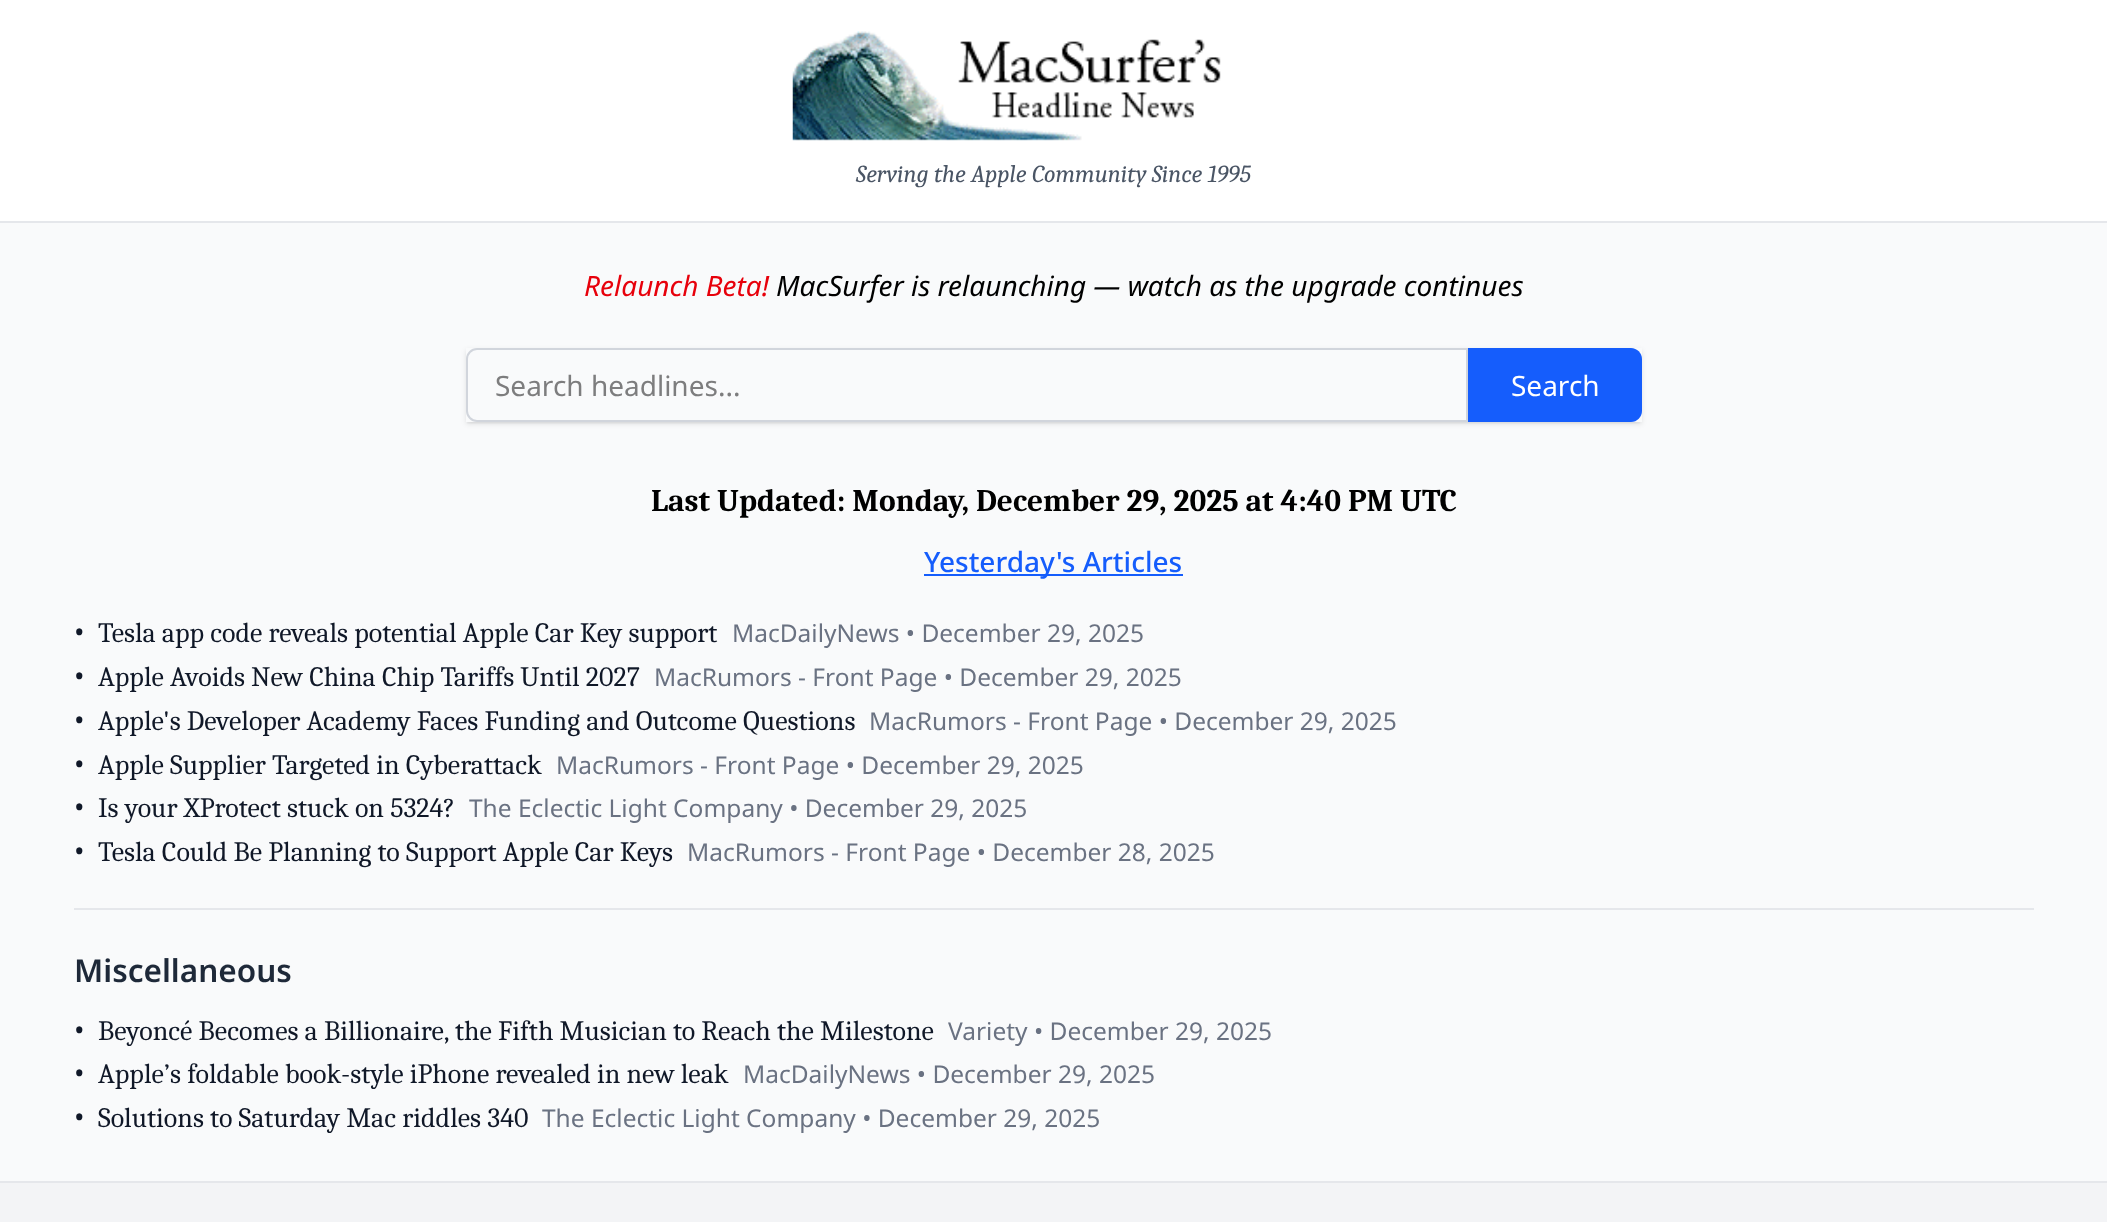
<svg xmlns="http://www.w3.org/2000/svg" width="2107" height="1222">
<defs>
<clipPath id="clip1"><rect x="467" y="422" width="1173" height="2"/></clipPath>
<clipPath id="clip2"><path d="M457 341h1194v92h-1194zm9 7h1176v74h-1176z" clip-rule="evenodd"/></clipPath>
</defs>
<rect width="100%" height="100%" fill="#f9fafb"/>
<rect width="2107" height="221" fill="#fff"/>
<rect y="221" width="2107" height="2" fill="#e5e7eb"/>
<image x="792" y="31" width="429" height="110" href="media/1.png"/>
<text x="856" y="182" style="font-family:Caladea;font-size:24.5px;font-style:italic;fill:#4a5565">Serving the Apple Community Since 1995</text>
<text x="584" y="296" style="font-family:Noto Sans;font-size:28px;font-style:italic;fill:#e7000b">Relaunch Beta!</text>
<text x="776" y="296" style="font-family:Noto Sans;font-size:28px;font-style:italic;fill:#000">MacSurfer is relaunching — watch as the upgrade continues</text>
<g clip-path="url(#clip1)">
<rect x="467" y="352" width="1173" height="70" fill="#0000001a" filter="blur(2px)"/>
</g>
<g clip-path="url(#clip2)">
<rect x="466" y="350" width="1176" height="74" fill="#0000001a" filter="blur(2.5px)"/>
</g>
<path d="M477 349h990v72h-990c-5.5 0-10-4.5-10-10v-52c0-5.5 4.5-10 10-10z" fill="none" stroke="#d1d5dc" stroke-width="2"/>
<text x="495" y="396" style="font-family:Noto Sans;font-size:28px;fill:#7d7d7e">Search headlines...</text>
<path d="M1468 348h163c6 0 11 5 11 11v52c0 6-5 11-11 11h-163z" fill="#155dfc"/>
<text x="1511" y="396" style="font-family:Noto Sans;font-size:28px;fill:#fff">Search</text>
<text x="651" y="511" style="font-family:Caladea;font-size:31.5px;font-weight:bold;fill:#000">Last Updated: Monday, December 29, 2025 at 4:40 PM UTC</text>
<rect x="924" y="574" width="259" height="2" fill="#155dfc"/>
<text x="924" y="572" style="font-family:Noto Sans;font-size:28px;font-weight:500;fill:#155dfc">Yesterday's Articles</text>
<text x="74" y="642" style="font-family:Noto Sans;font-size:28px;fill:#101828">•</text>
<text x="98" y="642" style="font-family:Caladea;font-size:28px;fill:#101828">Tesla app code reveals potential Apple Car Key support</text>
<text x="732" y="642" style="font-family:Noto Sans;font-size:24.5px;fill:#6a7282">MacDailyNews • December 29, 2025</text>
<text x="74" y="686" style="font-family:Noto Sans;font-size:28px;fill:#101828">•</text>
<text x="98" y="686" style="font-family:Caladea;font-size:28px;fill:#101828">Apple Avoids New China Chip Tariffs Until 2027</text>
<text x="654" y="686" style="font-family:Noto Sans;font-size:24.5px;fill:#6a7282">MacRumors - Front Page • December 29, 2025</text>
<text x="74" y="730" style="font-family:Noto Sans;font-size:28px;fill:#101828">•</text>
<text x="98" y="730" style="font-family:Caladea;font-size:28px;fill:#101828">Apple's Developer Academy Faces Funding and Outcome Questions</text>
<text x="869" y="730" style="font-family:Noto Sans;font-size:24.5px;fill:#6a7282">MacRumors - Front Page • December 29, 2025</text>
<text x="74" y="774" style="font-family:Noto Sans;font-size:28px;fill:#101828">•</text>
<text x="98" y="774" style="font-family:Caladea;font-size:28px;fill:#101828">Apple Supplier Targeted in Cyberattack</text>
<text x="556" y="774" style="font-family:Noto Sans;font-size:24.5px;fill:#6a7282">MacRumors - Front Page • December 29, 2025</text>
<text x="74" y="817" style="font-family:Noto Sans;font-size:28px;fill:#101828">•</text>
<text x="98" y="817" style="font-family:Caladea;font-size:28px;fill:#101828">Is your XProtect stuck on 5324?</text>
<text x="469" y="817" style="font-family:Noto Sans;font-size:24.5px;fill:#6a7282">The Eclectic Light Company • December 29, 2025</text>
<text x="74" y="861" style="font-family:Noto Sans;font-size:28px;fill:#101828">•</text>
<text x="98" y="861" style="font-family:Caladea;font-size:28px;fill:#101828">Tesla Could Be Planning to Support Apple Car Keys</text>
<text x="687" y="861" style="font-family:Noto Sans;font-size:24.5px;fill:#6a7282">MacRumors - Front Page • December 28, 2025</text>
<rect x="74" y="908" width="1960" height="2" fill="#e5e7eb"/>
<text x="74" y="982" style="font-family:Noto Sans;font-size:31.5px;font-weight:600;fill:#1e2939">Miscellaneous</text>
<text x="74" y="1040" style="font-family:Noto Sans;font-size:28px;fill:#101828">•</text>
<text x="98" y="1040" style="font-family:Caladea;font-size:28px;fill:#101828">Beyoncé Becomes a Billionaire, the Fifth Musician to Reach the Milestone</text>
<text x="948" y="1040" style="font-family:Noto Sans;font-size:24.5px;fill:#6a7282">Variety • December 29, 2025</text>
<text x="74" y="1083" style="font-family:Noto Sans;font-size:28px;fill:#101828">•</text>
<text x="98" y="1083" style="font-family:Caladea;font-size:28px;fill:#101828">Apple’s foldable book-style iPhone revealed in new leak</text>
<text x="743" y="1083" style="font-family:Noto Sans;font-size:24.5px;fill:#6a7282">MacDailyNews • December 29, 2025</text>
<text x="74" y="1127" style="font-family:Noto Sans;font-size:28px;fill:#101828">•</text>
<text x="98" y="1127" style="font-family:Caladea;font-size:28px;fill:#101828">Solutions to Saturday Mac riddles 340</text>
<text x="542" y="1127" style="font-family:Noto Sans;font-size:24.5px;fill:#6a7282">The Eclectic Light Company • December 29, 2025</text>
<rect y="1183" width="2107" height="39" fill="#f3f4f6"/>
<rect y="1181" width="2107" height="2" fill="#e5e7eb"/>
</svg>
